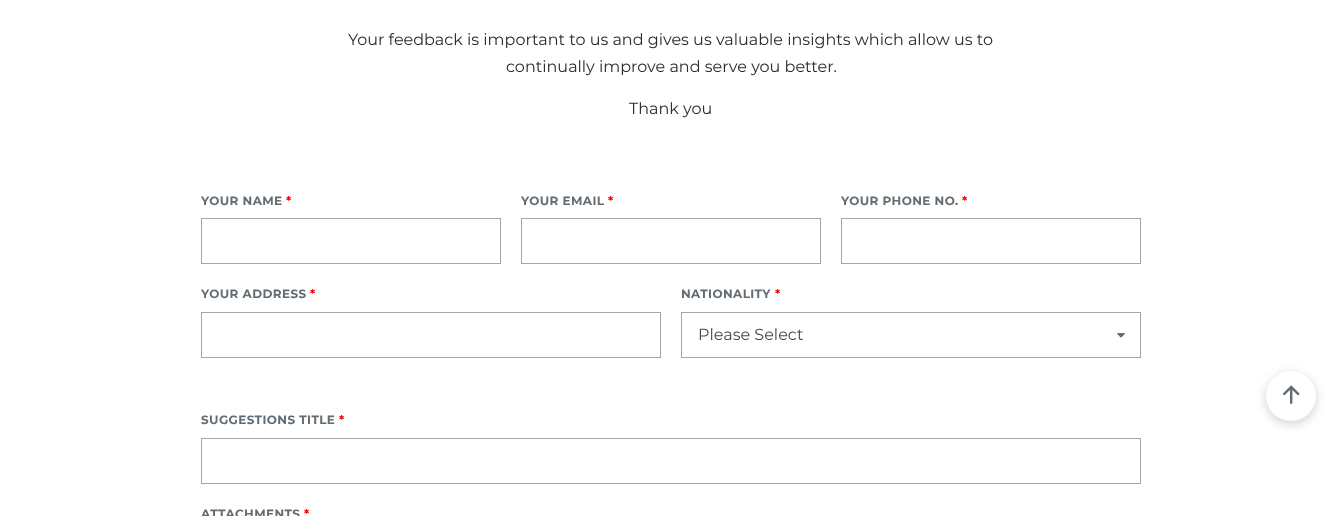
<svg xmlns="http://www.w3.org/2000/svg" width="1342" height="516">
<rect width="100%" height="100%" fill="#fff"/>
<text x="348" y="45" style="font-family:Montserrat;font-size:16px;fill:#292b2c">Your feedback is important to us and gives us valuable insights which allow us to</text>
<text x="506" y="72" style="font-family:Montserrat;font-size:16px;fill:#292b2c">continually improve and serve you better.</text>
<text x="629" y="114" style="font-family:Montserrat;font-size:16px;fill:#292b2c">Thank you</text>
<text x="201" y="205" style="font-family:Montserrat;font-size:12px;font-weight:bold;letter-spacing:0.4px;fill:#636c72">YOUR NAME</text>
<text x="286" y="205" style="font-family:Montserrat;font-size:12px;font-weight:bold;letter-spacing:0.4px;fill:#f00">*</text>
<rect x="201.5" y="218.5" width="299" height="45" fill="none" stroke="#a6a6a6"/>
<text x="521" y="205" style="font-family:Montserrat;font-size:12px;font-weight:bold;letter-spacing:0.4px;fill:#636c72">YOUR EMAIL</text>
<text x="608" y="205" style="font-family:Montserrat;font-size:12px;font-weight:bold;letter-spacing:0.4px;fill:#f00">*</text>
<rect x="521.5" y="218.5" width="299" height="45" fill="none" stroke="#a6a6a6"/>
<text x="841" y="205" style="font-family:Montserrat;font-size:12px;font-weight:bold;letter-spacing:0.4px;fill:#636c72">YOUR PHONE NO.</text>
<text x="962" y="205" style="font-family:Montserrat;font-size:12px;font-weight:bold;letter-spacing:0.4px;fill:#f00">*</text>
<rect x="841.5" y="218.5" width="299" height="45" fill="none" stroke="#a6a6a6"/>
<text x="201" y="298" style="font-family:Montserrat;font-size:12px;font-weight:bold;letter-spacing:0.4px;fill:#636c72">YOUR ADDRESS</text>
<text x="310" y="298" style="font-family:Montserrat;font-size:12px;font-weight:bold;letter-spacing:0.4px;fill:#f00">*</text>
<rect x="201.5" y="312.5" width="459" height="45" fill="none" stroke="#a6a6a6"/>
<text x="681" y="298" style="font-family:Montserrat;font-size:12px;font-weight:bold;letter-spacing:0.4px;fill:#636c72">NATIONALITY</text>
<text x="775" y="298" style="font-family:Montserrat;font-size:12px;font-weight:bold;letter-spacing:0.4px;fill:#f00">*</text>
<rect x="681.5" y="312.5" width="459" height="45" fill="none" stroke="#a6a6a6"/>
<text x="698" y="340" style="font-family:Montserrat;font-size:16px;fill:#464a4c">Please Select</text>
<image x="1117" y="333" width="8" height="5" href="media/1.png"/>
<text x="201" y="424" style="font-family:Montserrat;font-size:12px;font-weight:bold;letter-spacing:0.4px;fill:#636c72">SUGGESTIONS TITLE</text>
<text x="339" y="424" style="font-family:Montserrat;font-size:12px;font-weight:bold;letter-spacing:0.4px;fill:#f00">*</text>
<rect x="201.5" y="438.5" width="939" height="45" fill="none" stroke="#a6a6a6"/>
<text x="201" y="518" style="font-family:Montserrat;font-size:12px;font-weight:bold;letter-spacing:0.4px;fill:#636c72">ATTACHMENTS</text>
<text x="304" y="518" style="font-family:Montserrat;font-size:12px;font-weight:bold;letter-spacing:0.4px;fill:#f00">*</text>
<rect x="1265" y="373" width="52" height="52" rx="26" fill="#00000026" filter="blur(5px)"/>
<circle cx="1291" cy="396" r="25" fill="#fff"/>
<image x="1283" y="385" width="17" height="19" href="media/2.png"/>
</svg>
